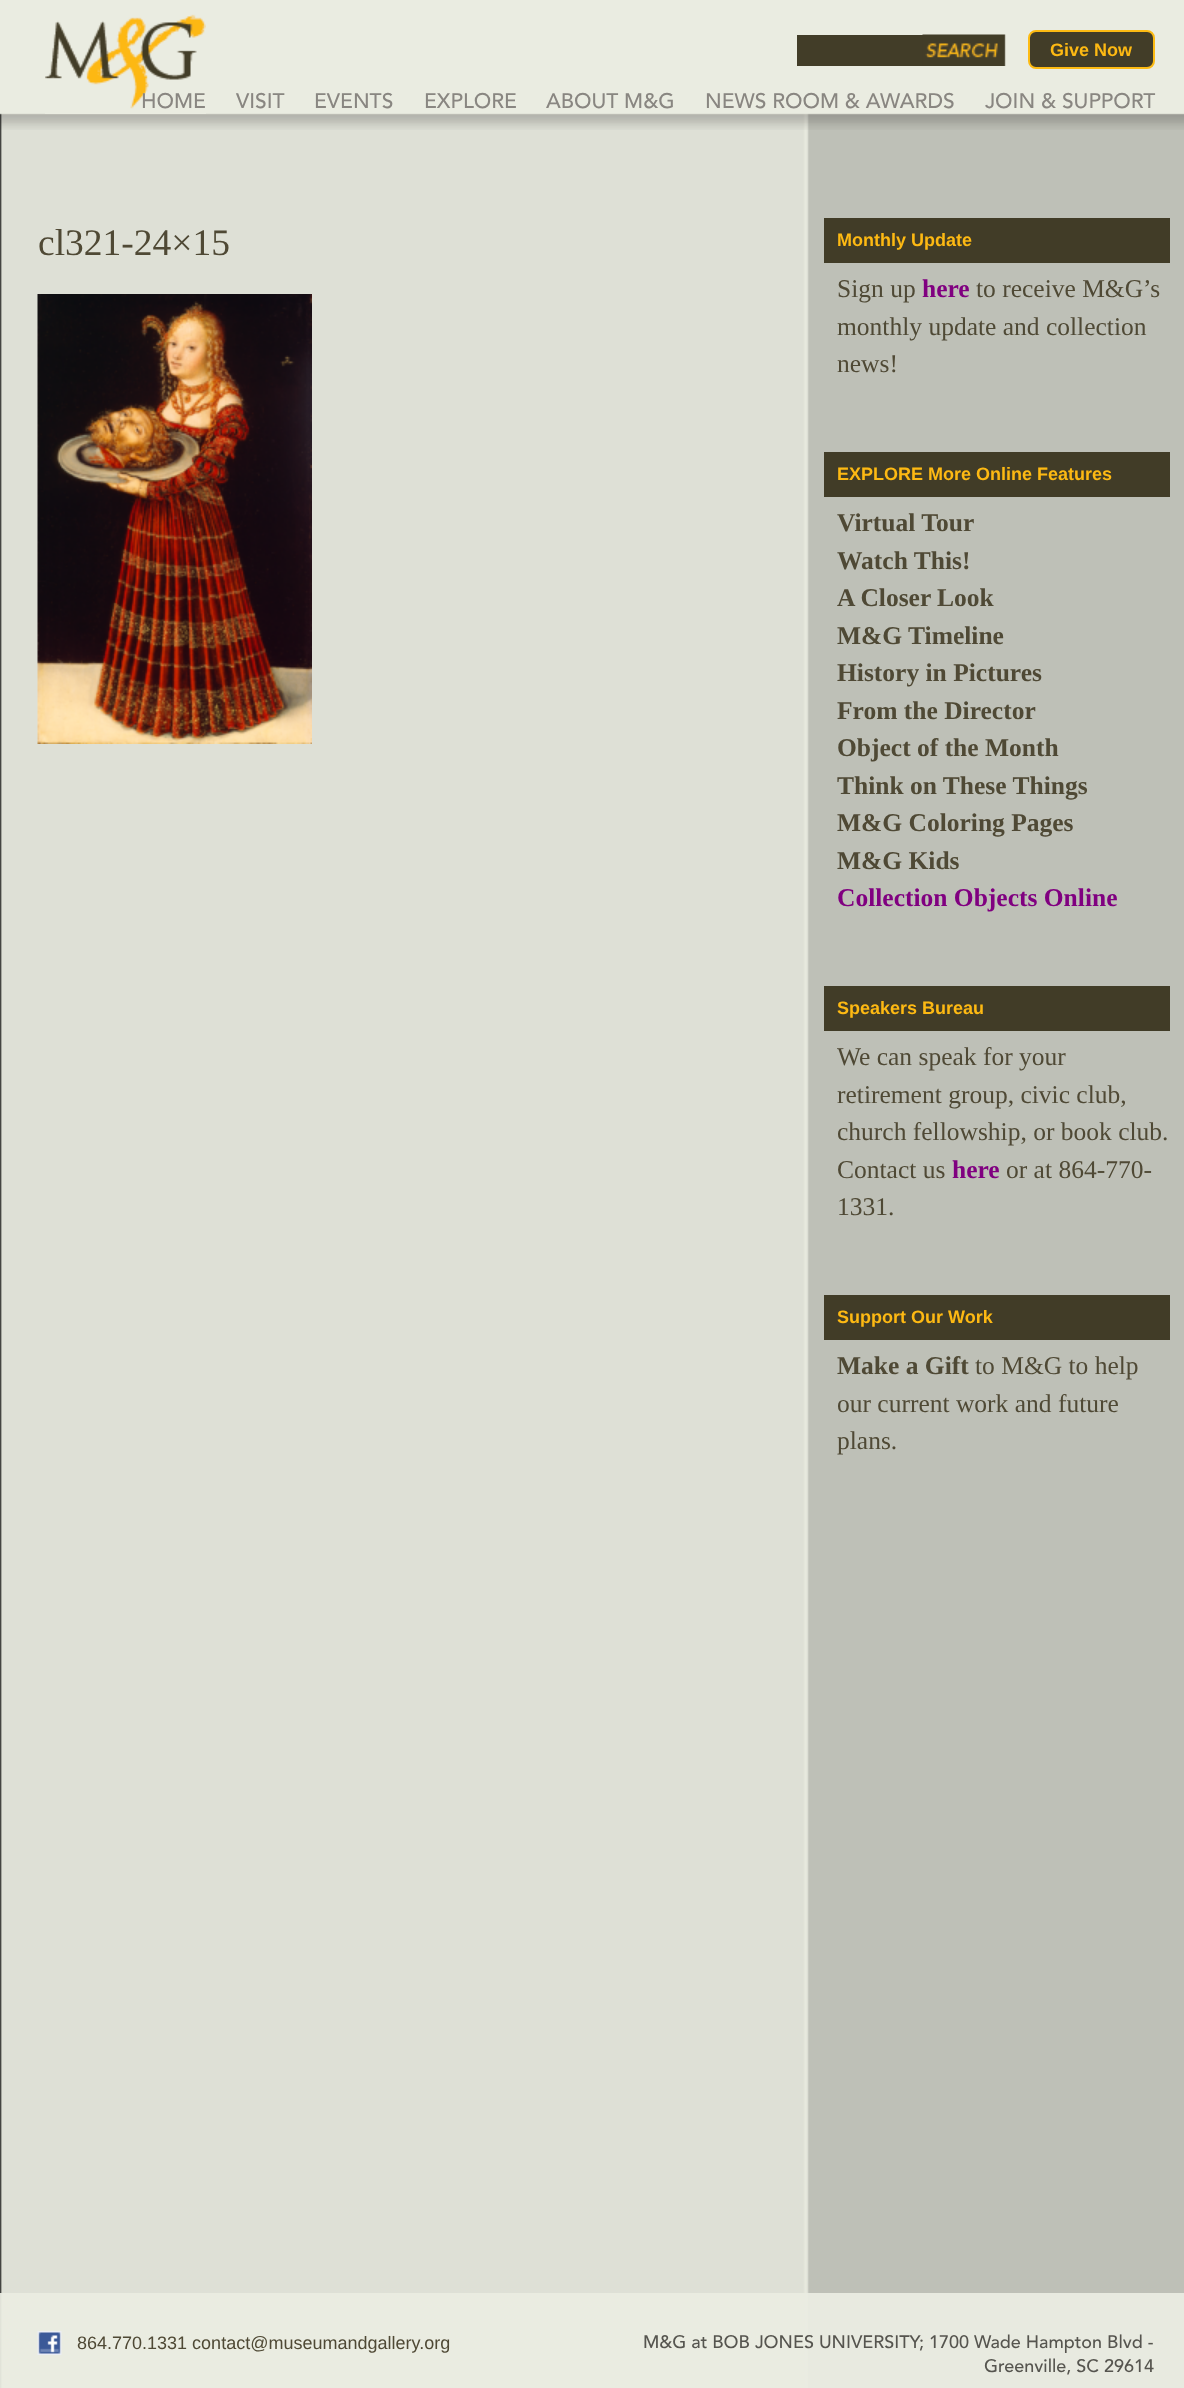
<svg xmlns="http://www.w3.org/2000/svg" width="1184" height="2388">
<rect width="100%" height="100%" fill="#111"/>
<image x="0" y="113" width="1184" height="2275" href="media/4.png"/>
<image x="0" y="0" width="1184" height="130" href="media/1.png"/>
<image x="45" y="14" width="161" height="100" href="media/2.png"/>
<rect x="797" y="35" width="126" height="31" fill="#423d28"/>
<image x="922" y="34" width="84" height="32" href="media/3.png"/>
<rect x="1029" y="31" width="125" height="37" rx="7" fill="#423d28" stroke="#fdbb13" stroke-width="2"/>
<text x="1050" y="56" style="font-family:Liberation Sans;font-size:18px;font-weight:bold;fill:#fdb913">Give Now</text>
<text x="141" y="108" style="font-family:Avenir;font-size:21px;font-weight:500;fill:#898681">HOME</text>
<text x="236" y="108" style="font-family:Avenir;font-size:21px;font-weight:500;fill:#898681">VISIT</text>
<text x="314" y="108" style="font-family:Avenir;font-size:21px;font-weight:500;fill:#898681">EVENTS</text>
<text x="424" y="108" style="font-family:Avenir;font-size:21px;font-weight:500;fill:#898681">EXPLORE</text>
<text x="546" y="108" style="font-family:Avenir;font-size:21px;font-weight:500;fill:#898681">ABOUT M&amp;G</text>
<text x="705" y="108" style="font-family:Avenir;font-size:21px;font-weight:500;fill:#898681">NEWS ROOM &amp; AWARDS</text>
<text x="985" y="108" style="font-family:Avenir;font-size:21px;font-weight:500;fill:#898681">JOIN &amp; SUPPORT</text>
<text x="38" y="255" style="font-family:Liberation Serif;font-size:37.5px;fill:#4f4935">cl321-24×15</text>
<image x="37" y="294" width="275" height="450" href="media/5.png"/>
<rect x="824" y="218" width="346" height="45" fill="#413c27"/>
<text x="837" y="246" style="font-family:Liberation Sans;font-size:18px;font-weight:bold;fill:#fdb913">Monthly Update</text>
<text x="837" y="297" style="font-family:Liberation Serif;font-size:25.5px;fill:#4f4935">Sign up</text>
<text x="922" y="297" style="font-family:Liberation Serif;font-size:25.5px;font-weight:bold;fill:#800080">here</text>
<text x="976" y="297" style="font-family:Liberation Serif;font-size:25.5px;fill:#4f4935">to receive M&amp;G’s</text>
<text x="837" y="335" style="font-family:Liberation Serif;font-size:25.5px;fill:#4f4935">monthly update and collection</text>
<text x="837" y="372" style="font-family:Liberation Serif;font-size:25.5px;fill:#4f4935">news!</text>
<rect x="824" y="452" width="346" height="45" fill="#413c27"/>
<text x="837" y="480" style="font-family:Liberation Sans;font-size:18px;font-weight:bold;fill:#fdb913">EXPLORE More Online Features</text>
<text x="837" y="531" style="font-family:Liberation Serif;font-size:25.5px;font-weight:bold;fill:#4f4935">Virtual Tour</text>
<text x="837" y="569" style="font-family:Liberation Serif;font-size:25.5px;font-weight:bold;fill:#4f4935">Watch This!</text>
<text x="837" y="606" style="font-family:Liberation Serif;font-size:25.5px;font-weight:bold;fill:#4f4935">A Closer Look</text>
<text x="837" y="644" style="font-family:Liberation Serif;font-size:25.5px;font-weight:bold;fill:#4f4935">M&amp;G Timeline</text>
<text x="837" y="681" style="font-family:Liberation Serif;font-size:25.5px;font-weight:bold;fill:#4f4935">History in Pictures</text>
<text x="837" y="719" style="font-family:Liberation Serif;font-size:25.5px;font-weight:bold;fill:#4f4935">From the Director</text>
<text x="837" y="756" style="font-family:Liberation Serif;font-size:25.5px;font-weight:bold;fill:#4f4935">Object of the Month</text>
<text x="837" y="794" style="font-family:Liberation Serif;font-size:25.5px;font-weight:bold;fill:#4f4935">Think on These Things</text>
<text x="837" y="831" style="font-family:Liberation Serif;font-size:25.5px;font-weight:bold;fill:#4f4935">M&amp;G Coloring Pages</text>
<text x="837" y="869" style="font-family:Liberation Serif;font-size:25.5px;font-weight:bold;fill:#4f4935">M&amp;G Kids</text>
<text x="837" y="906" style="font-family:Liberation Serif;font-size:25.5px;font-weight:bold;fill:#800080">Collection Objects Online</text>
<rect x="824" y="986" width="346" height="45" fill="#413c27"/>
<text x="837" y="1014" style="font-family:Liberation Sans;font-size:18px;font-weight:bold;fill:#fdb913">Speakers Bureau</text>
<text x="837" y="1065" style="font-family:Liberation Serif;font-size:25.5px;fill:#4f4935">We can speak for your</text>
<text x="837" y="1103" style="font-family:Liberation Serif;font-size:25.5px;fill:#4f4935">retirement group, civic club,</text>
<text x="837" y="1140" style="font-family:Liberation Serif;font-size:25.5px;fill:#4f4935">church fellowship, or book club.</text>
<text x="837" y="1178" style="font-family:Liberation Serif;font-size:25.5px;fill:#4f4935">Contact us</text>
<text x="952" y="1178" style="font-family:Liberation Serif;font-size:25.5px;font-weight:bold;fill:#800080">here</text>
<text x="1006" y="1178" style="font-family:Liberation Serif;font-size:25.5px;fill:#4f4935">or at 864-770-</text>
<text x="837" y="1215" style="font-family:Liberation Serif;font-size:25.5px;fill:#4f4935">1331.</text>
<rect x="824" y="1295" width="346" height="45" fill="#413c27"/>
<text x="837" y="1323" style="font-family:Liberation Sans;font-size:18px;font-weight:bold;fill:#fdb913">Support Our Work</text>
<text x="837" y="1374" style="font-family:Liberation Serif;font-size:25.5px;font-weight:bold;fill:#4f4935">Make a Gift</text>
<text x="975" y="1374" style="font-family:Liberation Serif;font-size:25.5px;fill:#4f4935">to M&amp;G to help</text>
<text x="837" y="1412" style="font-family:Liberation Serif;font-size:25.5px;fill:#4f4935">our current work and future</text>
<text x="837" y="1449" style="font-family:Liberation Serif;font-size:25.5px;fill:#4f4935">plans.</text>
<rect y="2293" width="1184" height="95" fill="#eaece1f2"/>
<image x="37" y="2331" width="25" height="24" href="media/6.png"/>
<text x="77" y="2349" style="font-family:Liberation Sans;font-size:18px;fill:#4f4935">864.770.1331 contact@museumandgallery.org</text>
<text x="643" y="2348" style="font-family:Avenir;font-size:18px;font-weight:500;fill:#56554f">M&amp;G at BOB JONES UNIVERSITY; 1700 Wade Hampton Blvd -</text>
<text x="984" y="2372" style="font-family:Avenir;font-size:18px;font-weight:500;fill:#56554f">Greenville, SC 29614</text>
</svg>
